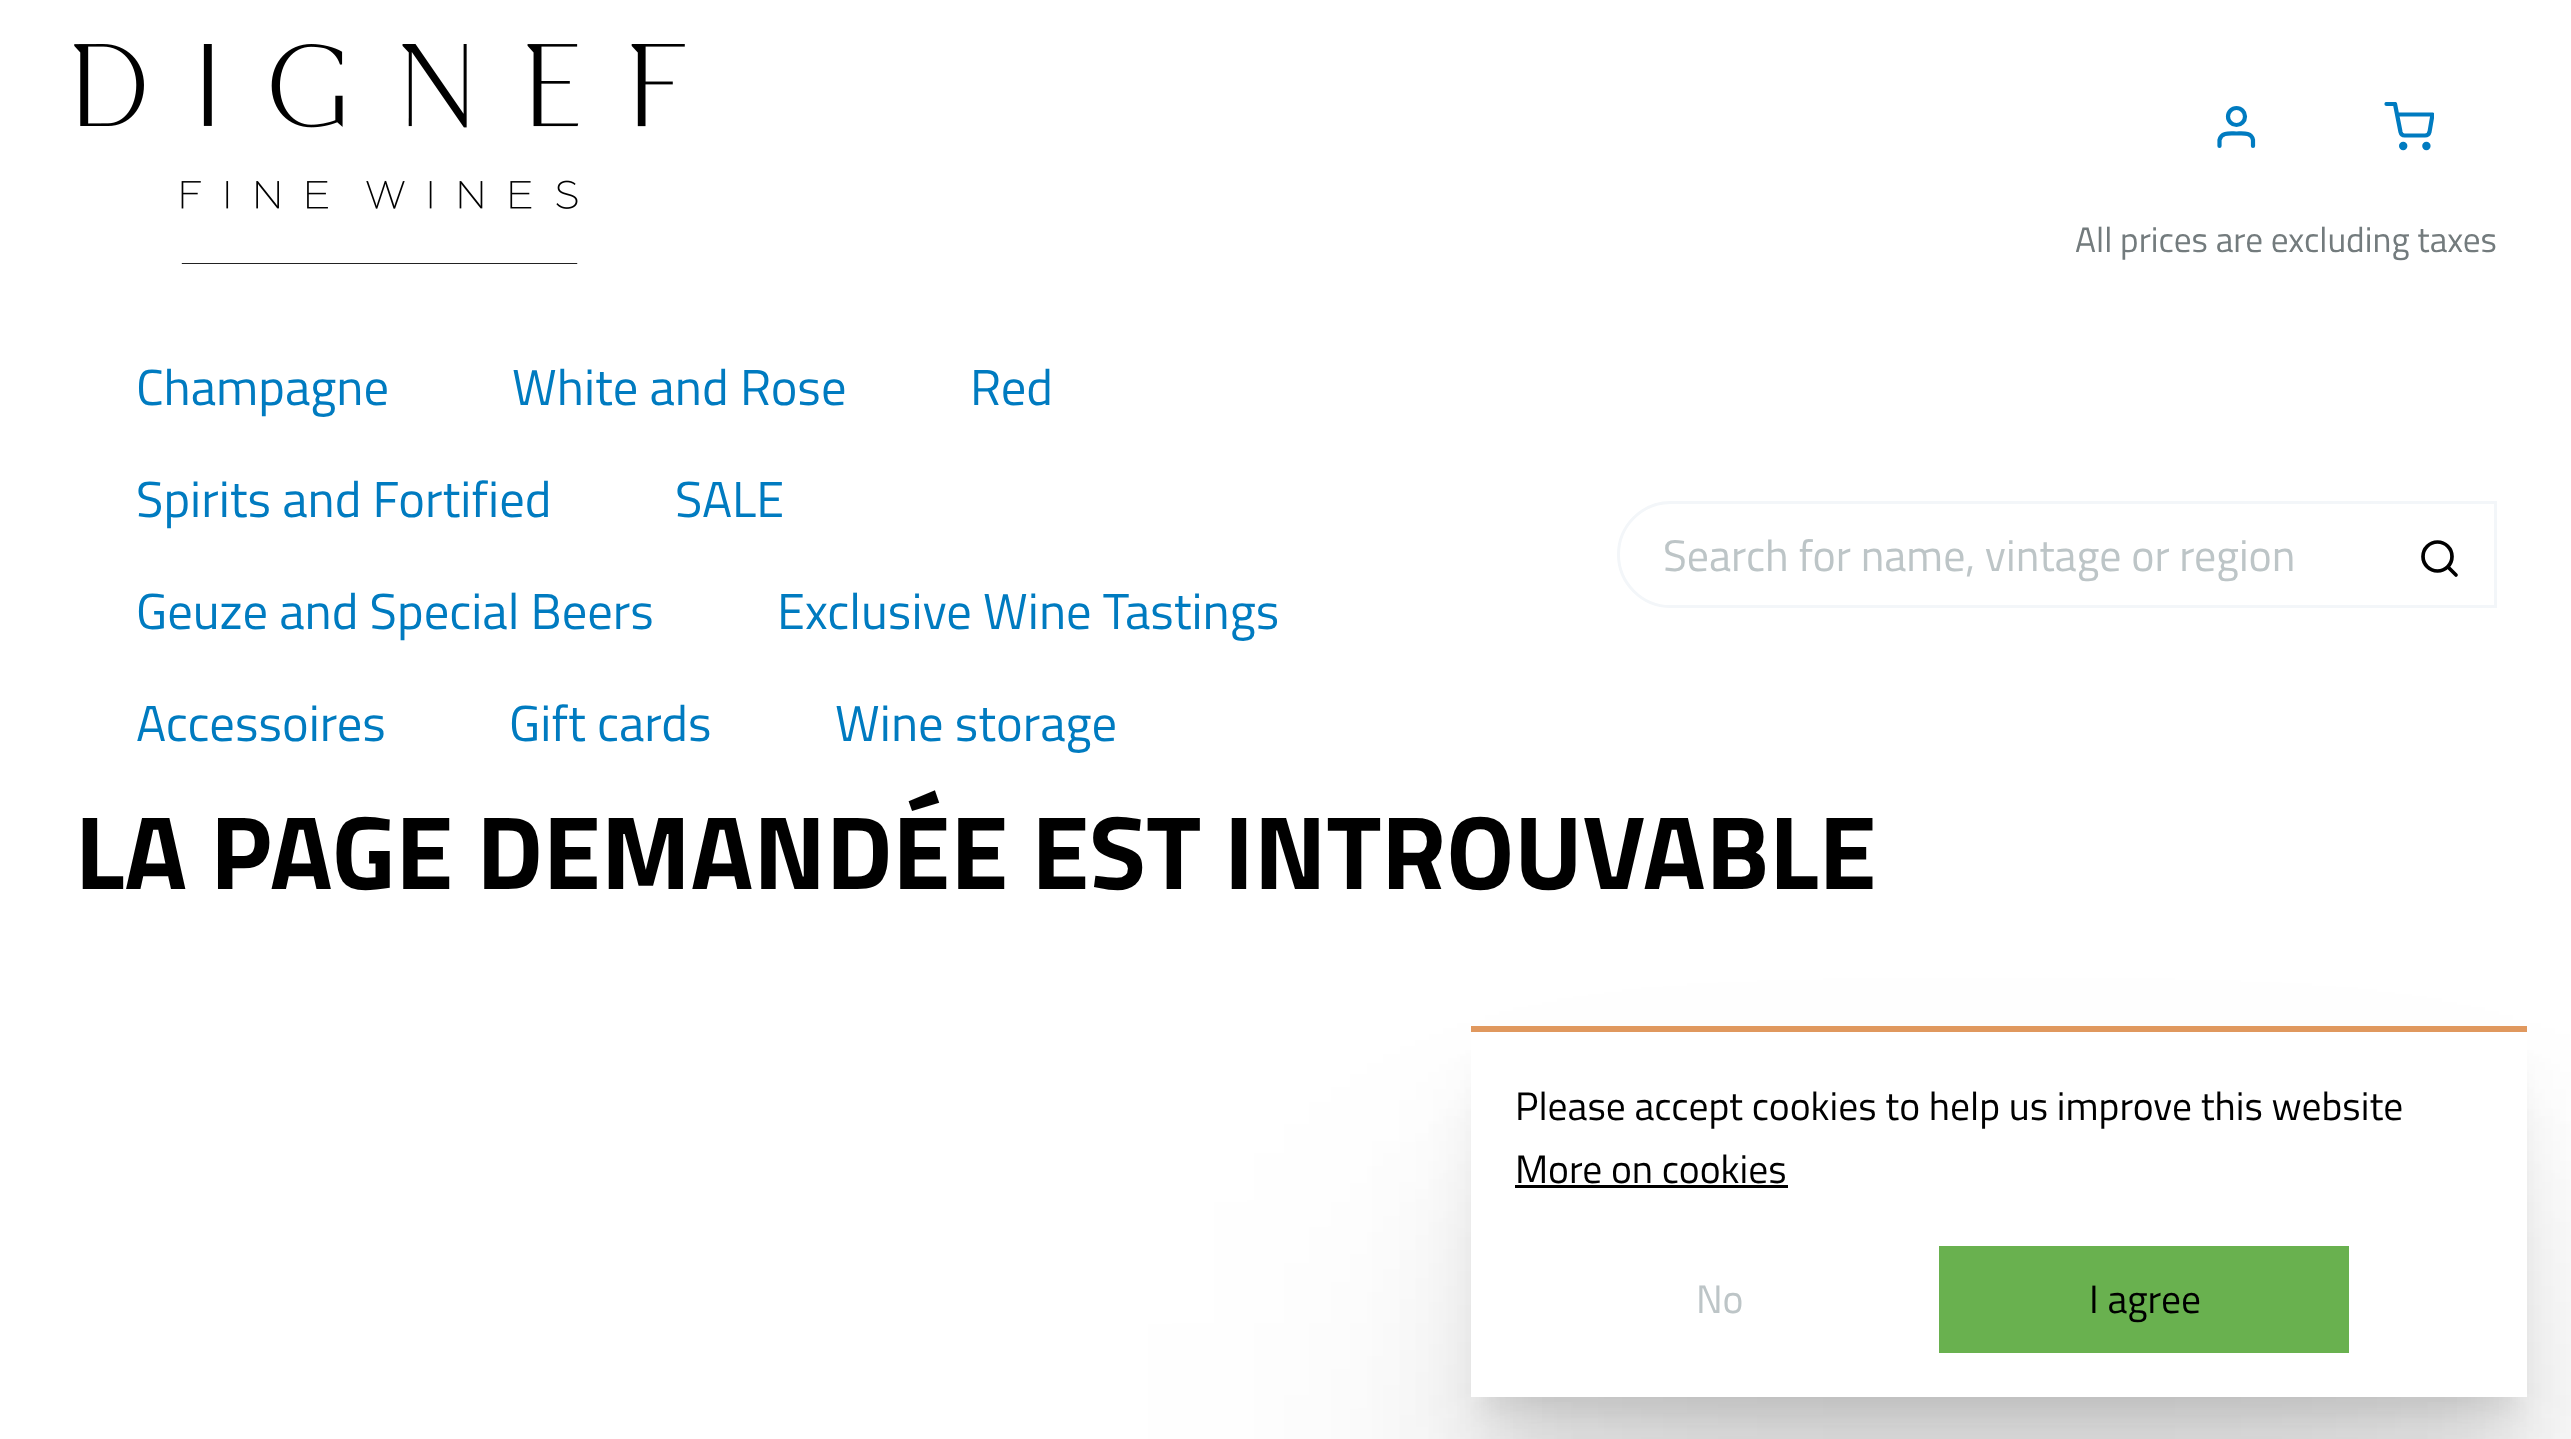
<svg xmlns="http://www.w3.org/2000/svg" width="2571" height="1439">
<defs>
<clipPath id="clip1"><rect x="2384" y="102" width="50" height="49"/></clipPath>
</defs>
<rect width="100%" height="100%" fill="#fff"/>
<image x="74" y="44" width="611" height="220" href="media/1.png"/>
<path d="M2253 146v-6c-1.5-8-10.5-6.5-16.5-6.5c-6.5 0-15-1.5-17 6.5v6" fill="none" stroke="#007bc0" stroke-width="4.2" stroke-linecap="round" stroke-linejoin="round"/>
<circle cx="2236.5" cy="116.5" r="8.5" fill="none" stroke="#007bc0" stroke-width="4.2"/>
<circle cx="2403.2" cy="146" r="2.1" fill="none" stroke="#007bc0" stroke-width="4.2"/>
<circle cx="2426.4" cy="146" r="2.1" fill="none" stroke="#007bc0" stroke-width="4.2"/>
<g clip-path="url(#clip1)">
<path d="M2386.5 104h8.5l5.5 28c.5 2 2 3.5 4 3.5h20.5c2 0 4-1.5 4.5-3.5l3-17.5h-35.5" fill="none" stroke="#007bc0" stroke-width="4.2" stroke-linecap="round" stroke-linejoin="round"/>
</g>
<text x="2075" y="252" style="font-family:Titillium Web;font-size:35.25px;fill:#737b7d">All prices are excluding taxes</text>
<text x="136" y="405" style="font-family:Titillium Web;font-size:50.6px;fill:#007bc0">Champagne</text>
<text x="512" y="405" style="font-family:Titillium Web;font-size:50.6px;fill:#007bc0">White and Rose</text>
<text x="970" y="405" style="font-family:Titillium Web;font-size:50.6px;fill:#007bc0">Red</text>
<text x="136" y="517" style="font-family:Titillium Web;font-size:50.6px;fill:#007bc0">Spirits and Fortified</text>
<text x="675" y="517" style="font-family:Titillium Web;font-size:50.6px;fill:#007bc0">SALE</text>
<text x="136" y="629" style="font-family:Titillium Web;font-size:50.6px;fill:#007bc0">Geuze and Special Beers</text>
<text x="777" y="629" style="font-family:Titillium Web;font-size:50.6px;fill:#007bc0">Exclusive Wine Tastings</text>
<text x="136" y="741" style="font-family:Titillium Web;font-size:50.6px;fill:#007bc0">Accessoires</text>
<text x="509" y="741" style="font-family:Titillium Web;font-size:50.6px;fill:#007bc0">Gift cards</text>
<text x="835" y="741" style="font-family:Titillium Web;font-size:50.6px;fill:#007bc0">Wine storage</text>
<path d="M1670.5 502.5h825v104h-825c-28.5 0-52-23.5-52-52c0-28.5 23.5-52 52-52z" fill="none" stroke="#f3f6f9" stroke-width="3"/>
<text x="1663" y="571" style="font-family:Titillium Web;font-size:44px;fill:#bdc5c7">Search for name, vintage or region</text>
<circle cx="2437.5" cy="556.5" r="14.5" fill="none" stroke="#000" stroke-width="3.7"/>
<path d="M2456 575l-8-8" fill="none" stroke="#000" stroke-width="3.7" stroke-linecap="round" stroke-linejoin="round"/>
<text x="75" y="889" style="font-family:Titillium Web;font-size:104.5px;font-weight:bold;fill:#000">LA PAGE DEMANDÉE EST INTROUVABLE</text>
<rect x="1485" y="1315" width="1029" height="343" fill="#0000001f" filter="blur(172px)"/>
<rect x="1485" y="1141" width="1029" height="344" fill="#00000014" filter="blur(62.5px)"/>
<rect x="1485" y="1089" width="1029" height="344" fill="#00000012" filter="blur(29px)"/>
<rect x="1485" y="1064" width="1029" height="344" fill="#0000000f" filter="blur(12.5px)"/>
<rect x="1471" y="1032" width="1056" height="365" fill="#fff"/>
<rect x="1471" y="1026" width="1056" height="6" fill="#e0985e"/>
<text x="1515" y="1120" style="font-family:Titillium Web;font-size:39.6px;fill:#000">Please accept cookies to help us improve this website</text>
<text x="1515" y="1183" style="font-family:Titillium Web;font-size:39.6px;fill:#000">More on cookies</text>
<rect x="1515" y="1185" width="273" height="3" fill="#000"/>
<text x="1696" y="1313" style="font-family:Titillium Web;font-size:39.6px;fill:#bdc5c7">No</text>
<rect x="1939" y="1246" width="410" height="107" fill="#69b14f"/>
<text x="2089" y="1313" style="font-family:Titillium Web;font-size:39.6px;fill:#000">I agree</text>
</svg>
